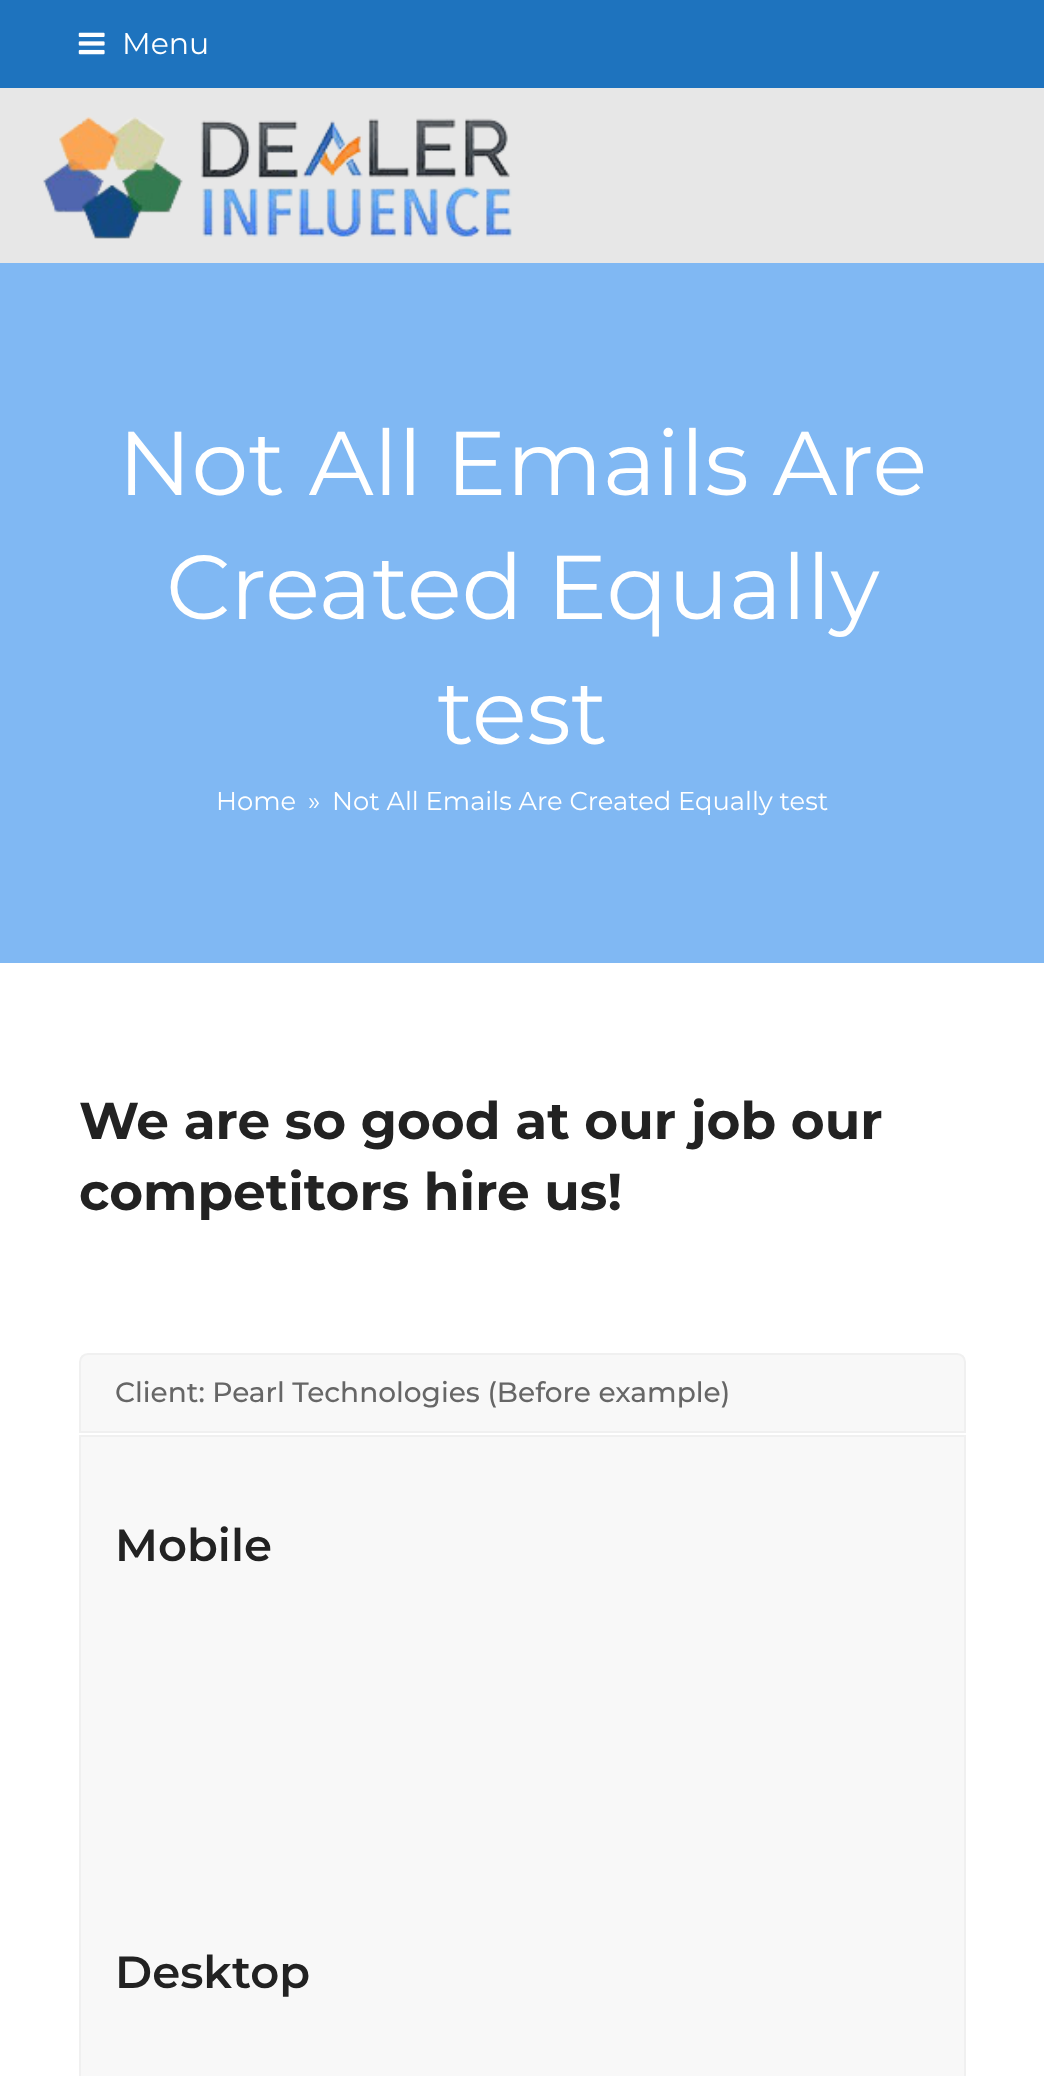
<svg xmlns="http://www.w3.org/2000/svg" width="1044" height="2076">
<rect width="100%" height="100%" fill="#fff"/>
<rect width="1044" height="88" fill="#1e73be"/>
<image x="78" y="32" width="27" height="23" href="media/1.png"/>
<text x="122" y="54" style="font-family:Montserrat;font-size:30px;fill:#fff">Menu</text>
<rect y="88" width="1044" height="175" fill="#e7e7e7"/>
<image x="43" y="117" width="469" height="122" href="media/2.png"/>
<rect y="263" width="1044" height="700" fill="#80b8f3"/>
<text x="118" y="495" style="font-family:Montserrat;font-size:90.5px;fill:#fff">Not All Emails Are</text>
<text x="166" y="619" style="font-family:Montserrat;font-size:90.5px;fill:#fff">Created Equally</text>
<text x="437" y="744" style="font-family:Montserrat;font-size:90.5px;fill:#fff">test</text>
<text x="216" y="810" style="font-family:Montserrat;font-size:25.8px;fill:#fff">Home</text>
<text x="308" y="810" style="font-family:Montserrat;font-size:25.8px;fill:#fff">»</text>
<text x="332" y="810" style="font-family:Montserrat;font-size:25.8px;fill:#fff">Not All Emails Are Created Equally test</text>
<text x="79" y="1139" style="font-family:Montserrat;font-size:51.75px;font-weight:bold;fill:#222">We are so good at our job our</text>
<text x="79" y="1210" style="font-family:Montserrat;font-size:51.75px;font-weight:bold;fill:#222">competitors hire us!</text>
<path d="M88 1354h869c4.5 0 8 3.5 8 8v70h-885v-70c0-4.5 3.5-8 8-8z" fill="#f8f8f8" stroke="#f0f0f0" stroke-width="2"/>
<text x="115" y="1402" style="font-family:Montserrat;font-size:28px;font-weight:500;fill:#666">Client: Pearl Technologies (Before example)</text>
<rect x="80" y="1436" width="885" height="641" fill="#f8f8f8" stroke="#f0f0f0" stroke-width="2"/>
<text x="115" y="1561" style="font-family:Montserrat;font-size:45px;font-weight:600;fill:#222">Mobile</text>
<text x="115" y="1988" style="font-family:Montserrat;font-size:45px;font-weight:600;fill:#222">Desktop</text>
</svg>
